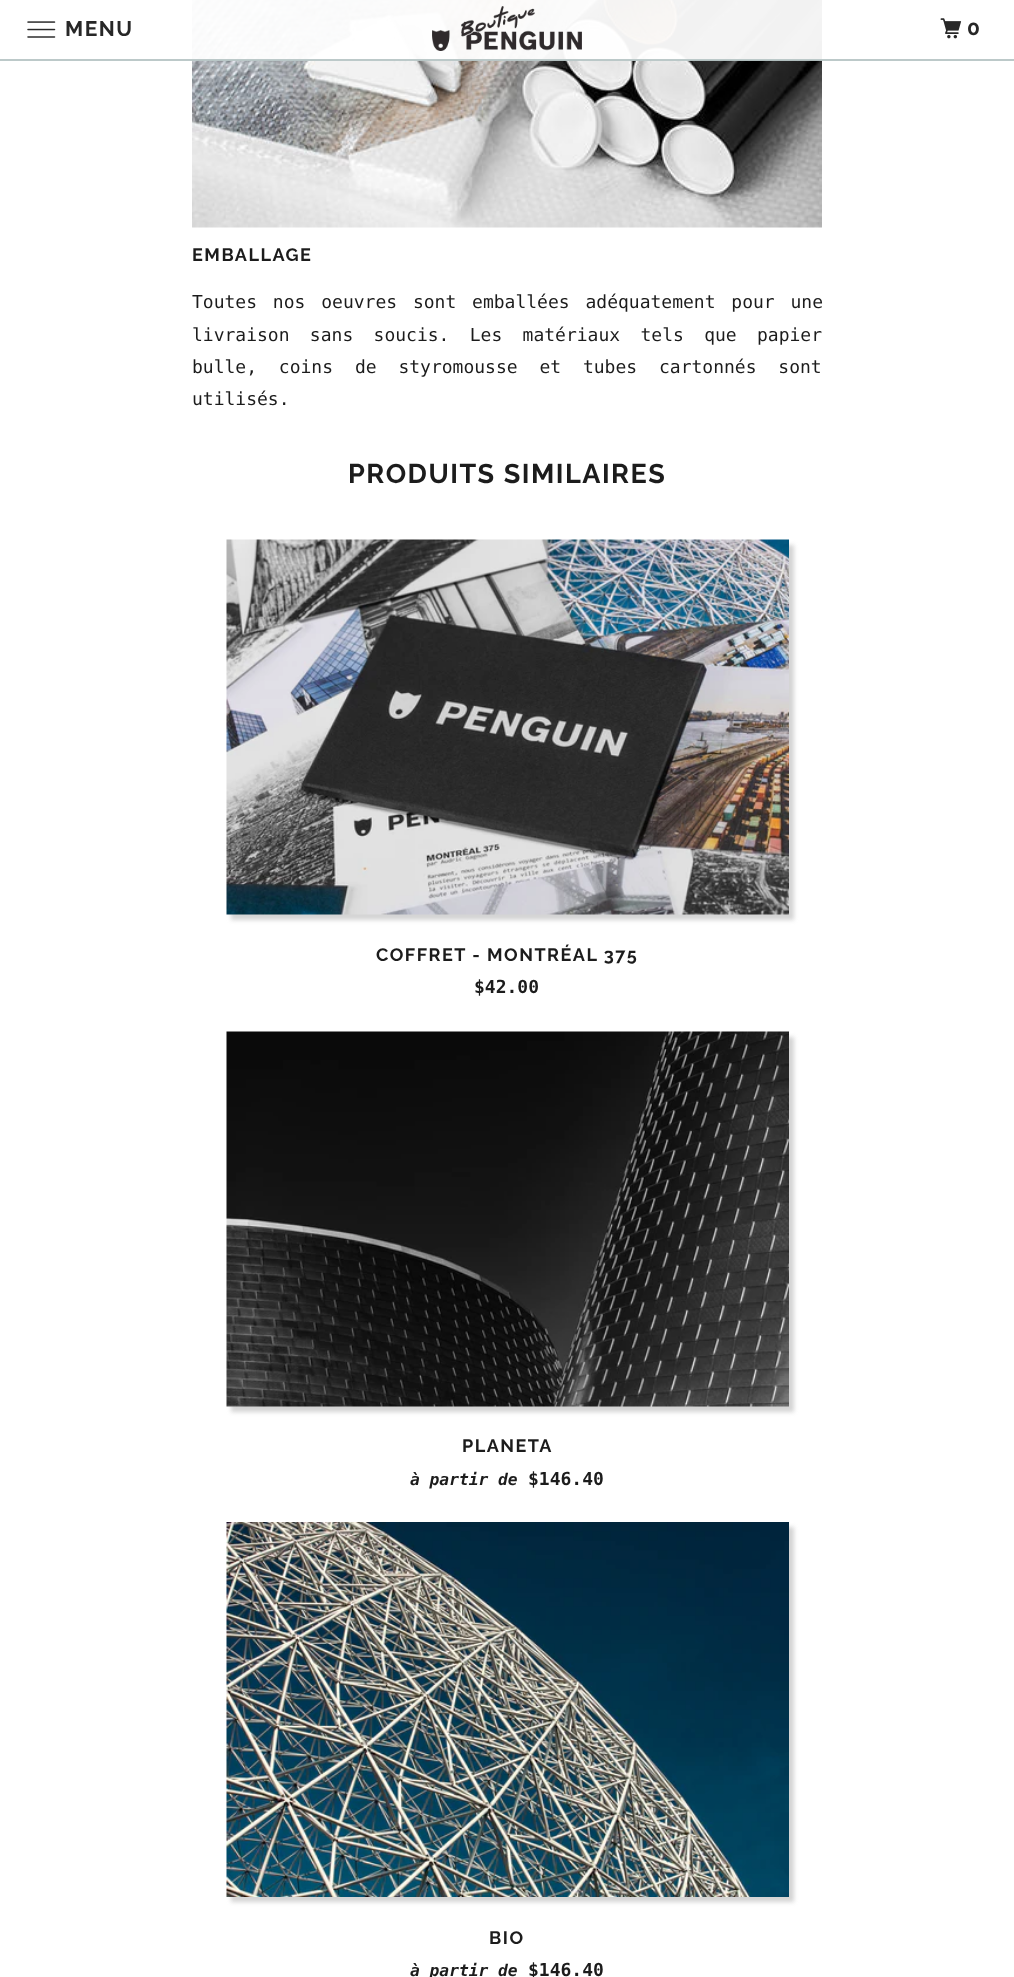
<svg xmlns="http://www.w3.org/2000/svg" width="1014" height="1977">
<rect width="100%" height="100%" fill="#fff"/>
<image x="192" y="0" width="630" height="228" href="media/4.png"/>
<rect x="192" width="630" height="60" fill="#fffffff2"/>
<rect y="59" width="1014" height="2" fill="#b8c6c6f2"/>
<image x="27" y="21" width="29" height="17" href="media/1.png"/>
<text x="65" y="36" style="font-family:Raleway;font-size:21px;font-weight:bold;letter-spacing:1.5px;fill:#272727">MENU</text>
<image x="432" y="6" width="150" height="45" href="media/2.png"/>
<image x="940" y="18" width="22" height="21" href="media/3.png"/>
<text x="967" y="35" style="font-family:Raleway;font-size:21px;font-weight:bold;letter-spacing:1.5px;fill:#272727">0</text>
<text x="192" y="261" style="font-family:Raleway;font-size:18px;font-weight:bold;letter-spacing:1.5px;fill:#1c1c1c">EMBALLAGE</text>
<text x="192" y="308" word-spacing="5" style="font-family:DejaVu Sans Mono;font-size:18px;fill:#1c1c1c">Toutes nos oeuvres sont emballées adéquatement pour une</text>
<text x="192" y="341" word-spacing="9.5" style="font-family:DejaVu Sans Mono;font-size:18px;fill:#1c1c1c">livraison sans soucis. Les matériaux tels que papier</text>
<text x="192" y="373" word-spacing="11" style="font-family:DejaVu Sans Mono;font-size:18px;fill:#1c1c1c">bulle, coins de styromousse et tubes cartonnés sont</text>
<text x="192" y="405" style="font-family:DejaVu Sans Mono;font-size:18px;fill:#1c1c1c">utilisés.</text>
<text x="348" y="483" style="font-family:Raleway;font-size:27px;font-weight:bold;letter-spacing:1.5px;fill:#1c1c1c">PRODUITS SIMILAIRES</text>
<rect x="231" y="545" width="563" height="375" fill="#a9a9a980" filter="blur(2px)"/>
<image x="226" y="539" width="563" height="376" href="media/5.png"/>
<text x="376" y="961" style="font-family:Raleway;font-size:18px;font-weight:bold;letter-spacing:1.5px;fill:#1c1c1c">COFFRET - MONTRÉAL 375</text>
<text x="474" y="993" style="font-family:DejaVu Sans Mono;font-size:18px;font-weight:bold;fill:#1c1c1c">$42.00</text>
<rect x="231" y="1037" width="563" height="375" fill="#a9a9a980" filter="blur(2px)"/>
<image x="226" y="1031" width="563" height="376" href="media/6.png"/>
<text x="462" y="1452" style="font-family:Raleway;font-size:18px;font-weight:bold;letter-spacing:1.5px;fill:#1c1c1c">PLANETA</text>
<text x="410" y="1485" style="font-family:DejaVu Sans Mono;font-size:16.25px;font-weight:bold;font-style:italic;fill:#1c1c1c">à partir de</text>
<text x="528" y="1485" style="font-family:DejaVu Sans Mono;font-size:18px;font-weight:bold;fill:#1c1c1c">$146.40</text>
<rect x="231" y="1527" width="563" height="375" fill="#a9a9a980" filter="blur(2px)"/>
<image x="226" y="1522" width="563" height="375" href="media/7.png"/>
<text x="489" y="1944" style="font-family:Raleway;font-size:18px;font-weight:bold;letter-spacing:1.5px;fill:#1c1c1c">BIO</text>
<text x="410" y="1976" style="font-family:DejaVu Sans Mono;font-size:16.25px;font-weight:bold;font-style:italic;fill:#1c1c1c">à partir de</text>
<text x="528" y="1976" style="font-family:DejaVu Sans Mono;font-size:18px;font-weight:bold;fill:#1c1c1c">$146.40</text>
</svg>
